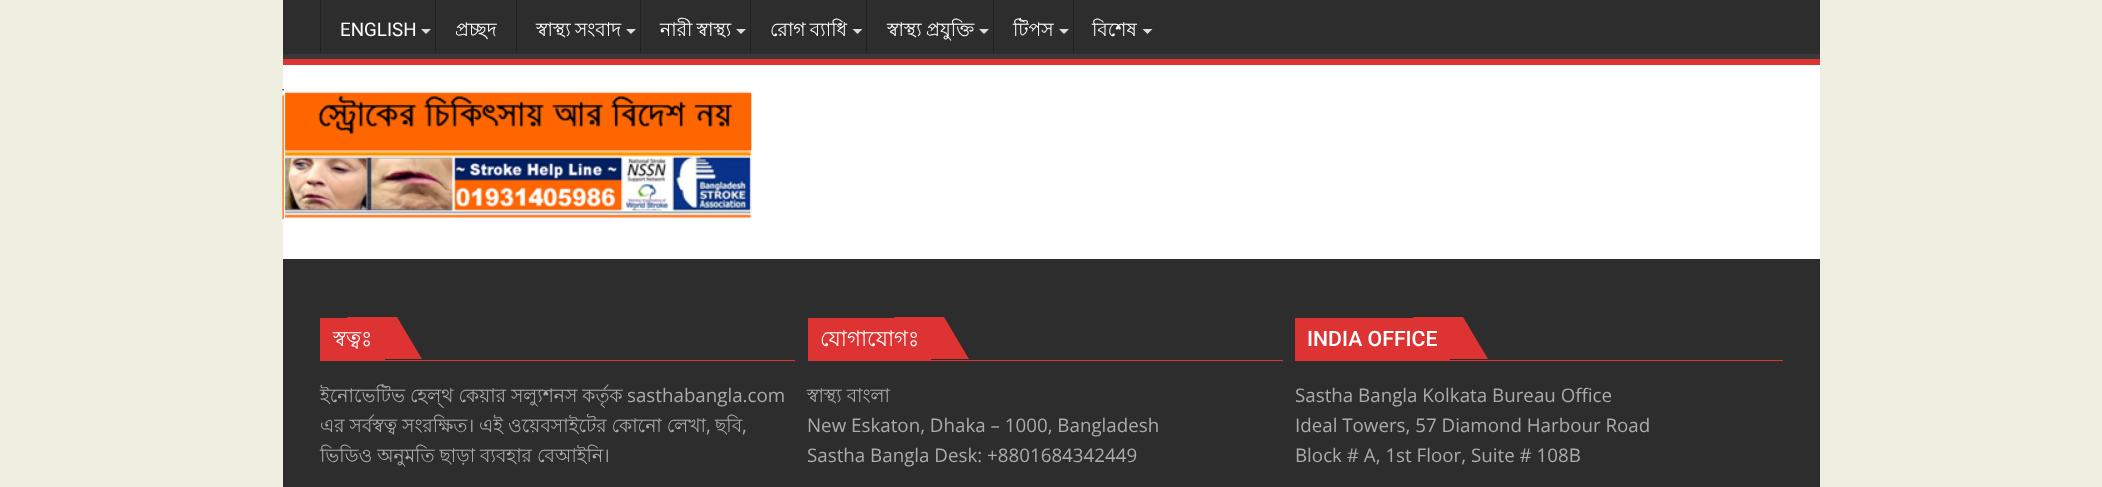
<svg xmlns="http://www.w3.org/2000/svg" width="2102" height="487">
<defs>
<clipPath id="clip1"><rect x="283" width="1537" height="59"/></clipPath>
</defs>
<rect width="100%" height="100%" fill="#eeeee1"/>
<rect x="283" y="65" width="1537" height="194" fill="#fff"/>
<rect x="283" width="1537" height="54" fill="#2d2d2d"/>
<g clip-path="url(#clip1)">
<path d="M159-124h1785v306h-1785zm122 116h1538c0 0 1 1 1 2v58c0 1-1 2-1 2h-1538c0 0-1-1-1-2v-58c0-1 1-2 1-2z" fill="#393939" fill-rule="evenodd"/>
</g>
<rect x="283" y="59" width="1537" height="6" fill="#d33"/>
<rect x="320" width="1" height="53" fill="#222"/>
<text x="340" y="36" style="font-family:Roboto;font-size:18.75px;fill:#fff">ENGLISH</text>
<path d="M421 29h10l-5 5z" fill="#ddd"/>
<rect x="435" width="1" height="53" fill="#222"/>
<text x="455" y="36" style="font-family:Lohit Bengali;font-size:18.75px;fill:#fff">প্রচ্ছদ</text>
<rect x="516" width="1" height="53" fill="#222"/>
<text x="536" y="36" word-spacing="-1" style="font-family:Lohit Bengali;font-size:18.75px;fill:#fff">স্বাস্থ্য সংবাদ</text>
<path d="M626 29h10l-5 5z" fill="#ddd"/>
<rect x="640" width="1" height="53" fill="#222"/>
<text x="660" y="36" word-spacing="-1" style="font-family:Lohit Bengali;font-size:18.75px;fill:#fff">নারী স্বাস্থ্য</text>
<path d="M736 29h10l-5 5z" fill="#ddd"/>
<rect x="750" width="1" height="53" fill="#222"/>
<text x="770" y="36" word-spacing="-1" style="font-family:Lohit Bengali;font-size:18.75px;fill:#fff">রোগ ব্যাধি</text>
<path d="M852.5 29h10l-5 5z" fill="#ddd"/>
<rect x="866" width="1" height="53" fill="#222"/>
<text x="887" y="36" word-spacing="-1" style="font-family:Lohit Bengali;font-size:18.75px;fill:#fff">স্বাস্থ্য প্রযুক্তি</text>
<path d="M979 29h10l-5 5z" fill="#ddd"/>
<rect x="993" width="1" height="53" fill="#222"/>
<text x="1013" y="36" style="font-family:Lohit Bengali;font-size:18.75px;fill:#fff">টিপস</text>
<path d="M1059 29h10l-5 5z" fill="#ddd"/>
<rect x="1073" width="1" height="53" fill="#222"/>
<text x="1092" y="36" style="font-family:Lohit Bengali;font-size:18.75px;fill:#fff">বিশেষ</text>
<path d="M1142.5 29h10l-5 5z" fill="#ddd"/>
<image x="282" y="86" width="470" height="137" href="media/1.png"/>
<rect x="283" y="259" width="1537" height="228" fill="#2d2d2d"/>
<rect x="320" y="360" width="475" height="1" fill="#d33"/>
<rect x="320" y="318" width="65" height="42" fill="#d33"/>
<path d="M347 317h50l25 42h-50z" fill="#d33"/>
<text x="333" y="346" style="font-family:Lohit Bengali;font-size:21.25px;fill:#fff">স্বত্বঃ</text>
<text x="320" y="402" word-spacing="-0.25" style="font-family:Lohit Bengali;font-size:18.75px;fill:#ababab">ইনোভেটিভ হেল্‌থ কেয়ার সল্যুশনস কর্তৃক</text>
<text x="627" y="402" style="font-family:Open Sans;font-size:18.75px;fill:#ababab">sasthabangla.com</text>
<text x="320" y="432" word-spacing="-0.25" style="font-family:Lohit Bengali;font-size:18.75px;fill:#ababab">এর সর্বস্বত্ব সংরক্ষিত। এই ওয়েবসাইটের কোনো লেখা</text>
<text x="706" y="432" style="font-family:Open Sans;font-size:18.75px;fill:#ababab">,</text>
<text x="715" y="432" style="font-family:Lohit Bengali;font-size:18.75px;fill:#ababab">ছবি</text>
<text x="742" y="432" style="font-family:Open Sans;font-size:18.75px;fill:#ababab">,</text>
<text x="320" y="462" word-spacing="-0.25" style="font-family:Lohit Bengali;font-size:18.75px;fill:#ababab">ভিডিও অনুমতি ছাড়া ব্যবহার বেআইনি।</text>
<rect x="808" y="360" width="475" height="1" fill="#d33"/>
<rect x="808" y="318" width="123" height="42" fill="#d33"/>
<path d="M894 317h50l25 42h-50z" fill="#d33"/>
<text x="820" y="346" style="font-family:Lohit Bengali;font-size:21.25px;fill:#fff">যোগাযোগঃ</text>
<text x="807" y="402" word-spacing="-0.25" style="font-family:Lohit Bengali;font-size:18.75px;fill:#ababab">স্বাস্থ্য বাংলা</text>
<text x="807" y="432" style="font-family:Open Sans;font-size:18.75px;fill:#ababab">New Eskaton, Dhaka – 1000, Bangladesh</text>
<text x="807" y="462" style="font-family:Open Sans;font-size:18.75px;fill:#ababab">Sastha Bangla Desk: +8801684342449</text>
<rect x="1295" y="360" width="488" height="1" fill="#d33"/>
<rect x="1295" y="318" width="155" height="42" fill="#d33"/>
<path d="M1413 317h50l25 42h-50z" fill="#d33"/>
<text x="1307" y="346" style="font-family:Roboto;font-size:21.25px;font-weight:500;fill:#fff">INDIA OFFICE</text>
<text x="1295" y="402" style="font-family:Open Sans;font-size:18.75px;fill:#ababab">Sastha Bangla Kolkata Bureau Office</text>
<text x="1295" y="432" style="font-family:Open Sans;font-size:18.75px;fill:#ababab">Ideal Towers, 57 Diamond Harbour Road</text>
<text x="1295" y="462" style="font-family:Open Sans;font-size:18.75px;fill:#ababab">Block # A, 1st Floor, Suite # 108B</text>
</svg>
